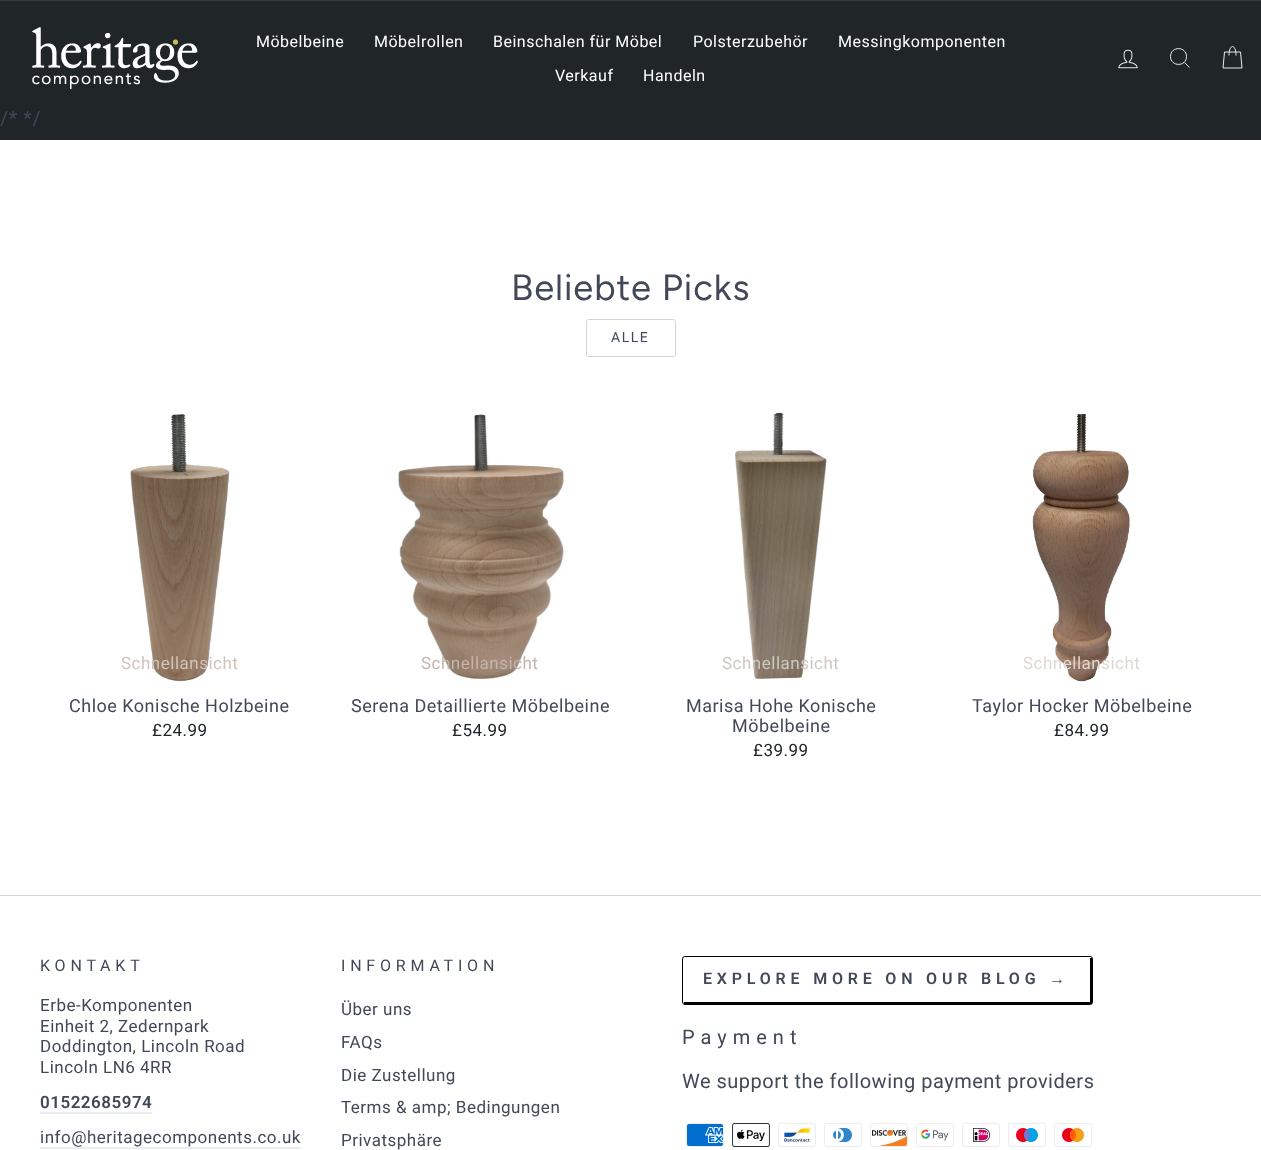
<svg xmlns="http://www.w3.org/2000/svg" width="1261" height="1150">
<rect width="100%" height="100%" fill="#fff"/>
<rect y="1" width="1261" height="139" fill="#202528"/>
<rect width="1261" height="1" fill="#363b3e"/>
<image x="32" y="27" width="166" height="62" href="media/1.png"/>
<text x="256" y="47" style="font-family:Roboto;font-size:16px;letter-spacing:0.5px;fill:#fff">Möbelbeine</text>
<text x="374" y="47" style="font-family:Roboto;font-size:16px;letter-spacing:0.5px;fill:#fff">Möbelrollen</text>
<text x="493" y="47" style="font-family:Roboto;font-size:16px;letter-spacing:0.5px;fill:#fff">Beinschalen für Möbel</text>
<text x="693" y="47" style="font-family:Roboto;font-size:16px;letter-spacing:0.5px;fill:#fff">Polsterzubehör</text>
<text x="838" y="47" style="font-family:Roboto;font-size:16px;letter-spacing:0.5px;fill:#fff">Messingkomponenten</text>
<text x="555" y="81" style="font-family:Roboto;font-size:16px;letter-spacing:0.5px;fill:#fff">Verkauf</text>
<text x="643" y="81" style="font-family:Roboto;font-size:16px;letter-spacing:0.5px;fill:#fff">Handeln</text>
<image x="1118" y="49" width="20" height="20" href="media/2.png"/>
<path d="M1186.5 56.5c0 10.5-16 10.5-16 0c0-10.5 16-10.5 16 0zm3 11l-5-5" fill="none" stroke="#fff" stroke-width="0.9"/>
<path d="M1229 55.5c0-12 7-12 7 0m-11.5-3.5h16l1.5 16h-19z" fill="none" stroke="#fff" stroke-width="0.9"/>
<text x="0" y="125" style="font-family:Roboto;font-size:20px;letter-spacing:0.5px;fill:#414857">/* */</text>
<text x="511" y="300" style="font-family:Figtree;font-size:36.5px;letter-spacing:0.9px;fill:#414857">Beliebte Picks</text>
<rect x="586.5" y="319.5" width="89" height="37" rx="2.5" fill="none" stroke="#cfd6e0"/>
<text x="611" y="342" style="font-family:Roboto;font-size:14px;letter-spacing:1.5px;fill:#414857">ALLE</text>
<image x="130" y="414" width="100" height="268" href="media/3.png"/>
<text x="121" y="669" style="font-family:Roboto;font-size:17px;letter-spacing:0.5px;fill:#cfc3ba">Schnellansicht</text>
<text x="69" y="712" style="font-family:Roboto;font-size:18px;letter-spacing:0.5px;fill:#414857">Chloe Konische Holzbeine</text>
<text x="152" y="736" style="font-family:Roboto;font-size:17px;letter-spacing:0.5px;fill:#202528">£24.99</text>
<image x="398" y="414" width="167" height="266" href="media/4.png"/>
<text x="421" y="669" style="font-family:Roboto;font-size:17px;letter-spacing:0.5px;fill:#c3b5aa">Schnellansicht</text>
<text x="351" y="712" style="font-family:Roboto;font-size:18px;letter-spacing:0.5px;fill:#414857">Serena Detaillierte Möbelbeine</text>
<text x="452" y="736" style="font-family:Roboto;font-size:17px;letter-spacing:0.5px;fill:#202528">£54.99</text>
<image x="735" y="412" width="92" height="267" href="media/5.png"/>
<text x="722" y="669" style="font-family:Roboto;font-size:17px;letter-spacing:0.5px;fill:#cec8c2">Schnellansicht</text>
<text x="686" y="712" style="font-family:Roboto;font-size:18px;letter-spacing:0.5px;fill:#414857">Marisa Hohe Konische</text>
<text x="732" y="732" style="font-family:Roboto;font-size:18px;letter-spacing:0.5px;fill:#414857">Möbelbeine</text>
<text x="753" y="756" style="font-family:Roboto;font-size:17px;letter-spacing:0.5px;fill:#202528">£39.99</text>
<image x="1032" y="414" width="98" height="268" href="media/6.png"/>
<text x="1023" y="669" style="font-family:Roboto;font-size:17px;letter-spacing:0.5px;fill:#dfd7d1">Schnellansicht</text>
<text x="972" y="712" style="font-family:Roboto;font-size:18px;letter-spacing:0.5px;fill:#414857">Taylor Hocker Möbelbeine</text>
<text x="1054" y="736" style="font-family:Roboto;font-size:17px;letter-spacing:0.5px;fill:#202528">£84.99</text>
<rect y="895" width="1261" height="1" fill="#cfd6e0"/>
<text x="40" y="971" style="font-family:Roboto;font-size:16px;letter-spacing:4.8px;fill:#414857">KONTAKT</text>
<text x="40" y="1011" style="font-family:Roboto;font-size:17px;letter-spacing:0.5px;fill:#414857">Erbe-Komponenten</text>
<text x="40" y="1032" style="font-family:Roboto;font-size:17px;letter-spacing:0.5px;fill:#414857">Einheit 2, Zedernpark</text>
<text x="40" y="1052" style="font-family:Roboto;font-size:17px;letter-spacing:0.5px;fill:#414857">Doddington, Lincoln Road</text>
<text x="40" y="1073" style="font-family:Roboto;font-size:17px;letter-spacing:0.5px;fill:#414857">Lincoln LN6 4RR</text>
<text x="40" y="1108" style="font-family:Roboto;font-size:17px;font-weight:600;letter-spacing:0.5px;fill:#414857">01522685974</text>
<rect x="40" y="1112" width="112" height="2" fill="#ecedee"/>
<text x="40" y="1143" style="font-family:Roboto;font-size:17px;letter-spacing:0.5px;fill:#414857">info@heritagecomponents.co.uk</text>
<rect x="40" y="1147" width="261" height="2" fill="#ecedee"/>
<text x="341" y="971" style="font-family:Roboto;font-size:16px;letter-spacing:4.8px;fill:#414857">INFORMATION</text>
<text x="341" y="1015" style="font-family:Roboto;font-size:17px;letter-spacing:0.5px;fill:#414857">Über uns</text>
<text x="341" y="1048" style="font-family:Roboto;font-size:17px;letter-spacing:0.5px;fill:#414857">FAQs</text>
<text x="341" y="1081" style="font-family:Roboto;font-size:17px;letter-spacing:0.5px;fill:#414857">Die Zustellung</text>
<text x="341" y="1113" style="font-family:Roboto;font-size:17px;letter-spacing:0.5px;fill:#414857">Terms &amp; amp; Bedingungen</text>
<text x="341" y="1146" style="font-family:Roboto;font-size:17px;letter-spacing:0.5px;fill:#414857">Privatsphäre</text>
<rect x="682.5" y="956.5" width="410" height="48" rx="2.5" fill="none" stroke="#000"/>
<rect x="1090" y="958" width="2" height="46" fill="#000"/>
<rect x="684" y="1002" width="408" height="2" fill="#000"/>
<text x="703" y="984" style="font-family:Roboto;font-size:16px;font-weight:600;letter-spacing:4.8px;fill:#414857">EXPLORE MORE ON OUR BLOG</text>
<text x="1049" y="984" style="font-family:Liberation Sans;font-size:16px;font-weight:bold;letter-spacing:4.8px;fill:#414857">→</text>
<text x="682" y="1044" style="font-family:Roboto;font-size:20px;letter-spacing:6px;fill:#414857">Payment</text>
<text x="682" y="1088" style="font-family:Roboto;font-size:20px;letter-spacing:0.5px;fill:#414857">We support the following payment providers</text>
<image x="686" y="1123" width="38" height="24" href="media/7.png"/>
<image x="732" y="1123" width="38" height="24" href="media/8.png"/>
<image x="778" y="1123" width="38" height="24" href="media/9.png"/>
<image x="824" y="1123" width="38" height="24" href="media/10.png"/>
<image x="870" y="1123" width="38" height="24" href="media/11.png"/>
<image x="916" y="1123" width="38" height="24" href="media/12.png"/>
<image x="962" y="1123" width="38" height="24" href="media/13.png"/>
<image x="1008" y="1123" width="38" height="24" href="media/14.png"/>
<image x="1054" y="1123" width="38" height="24" href="media/15.png"/>
</svg>
